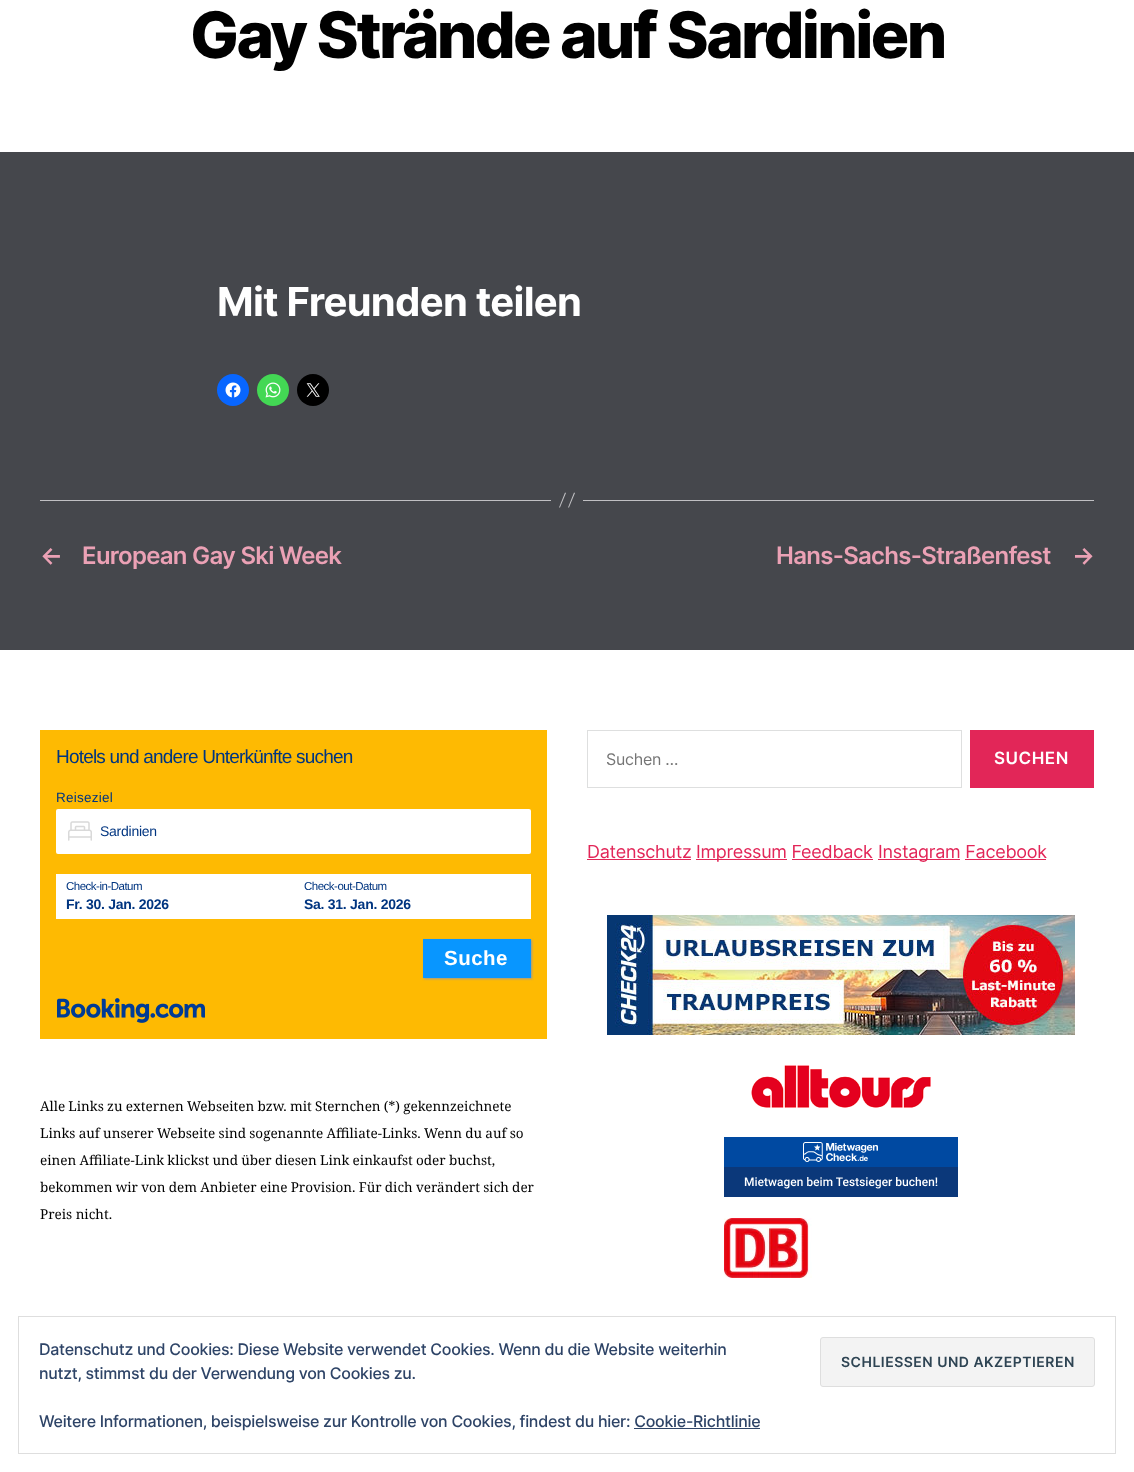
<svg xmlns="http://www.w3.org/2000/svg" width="1134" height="1472">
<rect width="100%" height="100%" fill="#45474c"/>
<rect width="1134" height="152" fill="#fff"/>
<text x="190" y="58" style="font-family:Inter;font-size:64px;font-weight:800;letter-spacing:-2.65px;fill:#000">Gay Strände auf Sardinien</text>
<text x="217" y="316" style="font-family:Inter;font-size:40px;font-weight:bold;letter-spacing:-0.7px;fill:#fff">Mit Freunden teilen</text>
<circle cx="233" cy="390" r="16" fill="#0866ff"/>
<image x="225" y="382" width="16" height="16" href="media/1.png"/>
<circle cx="273" cy="390" r="16" fill="#43d854"/>
<image x="265" y="382" width="16" height="16" href="media/2.png"/>
<circle cx="313" cy="390" r="16" fill="#000"/>
<image x="306" y="383" width="14" height="14" href="media/3.png"/>
<rect x="583" y="500" width="511" height="1" fill="#c0c0c3"/>
<rect x="40" y="500" width="511" height="1" fill="#c0c0c3"/>
<path d="M565 492.5l1 .5l-6 14.5h-1zm9 0l1 .5l-6 14.5h-1z" fill="#c0c0c3"/>
<text x="40" y="564" style="font-family:Inter;font-size:24px;font-weight:600;letter-spacing:-0.7px;fill:#eba1b5">←</text>
<text x="82" y="564" style="font-family:Inter;font-size:24px;font-weight:600;letter-spacing:-0.7px;fill:#eba1b5">European Gay Ski Week</text>
<text x="776" y="564" style="font-family:Inter;font-size:24px;font-weight:600;letter-spacing:-0.7px;fill:#eba1b5">Hans-Sachs-Straßenfest</text>
<text x="1072" y="564" style="font-family:Inter;font-size:24px;font-weight:600;letter-spacing:-0.7px;fill:#eba1b5">→</text>
<rect y="650" width="1134" height="822" fill="#fff"/>
<rect x="40" y="730" width="507" height="309" fill="#feba02"/>
<text x="56" y="763" style="font-family:Liberation Sans;font-size:19px;letter-spacing:-0.8px;fill:#003580">Hotels und andere Unterkünfte suchen</text>
<text x="56" y="802" style="font-family:Liberation Sans;font-size:13.5px;letter-spacing:0.25px;fill:#003580">Reiseziel</text>
<rect x="56" y="809" width="475" height="45" rx="2" fill="#fff"/>
<image x="68" y="821" width="24" height="20" href="media/4.png"/>
<text x="100" y="836" style="font-family:Liberation Sans;font-size:14px;letter-spacing:-0.25px;fill:#003580">Sardinien</text>
<rect x="56" y="874" width="475" height="45" fill="#fff"/>
<text x="66" y="890" style="font-family:Liberation Sans;font-size:11.5px;letter-spacing:-0.5px;fill:#003580">Check-in-Datum</text>
<text x="66" y="909" style="font-family:Liberation Sans;font-size:14px;font-weight:bold;letter-spacing:-0.27px;fill:#003580">Fr. 30. Jan. 2026</text>
<text x="304" y="890" style="font-family:Liberation Sans;font-size:11.5px;letter-spacing:-0.5px;fill:#003580">Check-out-Datum</text>
<text x="304" y="909" style="font-family:Liberation Sans;font-size:14px;font-weight:bold;letter-spacing:-0.27px;fill:#003580">Sa. 31. Jan. 2026</text>
<rect x="424" y="940" width="108" height="39" fill="#999" filter="blur(1px)"/>
<rect x="423" y="939" width="108" height="39" fill="#0896ff"/>
<text x="444" y="965" style="font-family:Liberation Sans;font-size:20.5px;font-weight:bold;letter-spacing:0.5px;fill:#fff">Suche</text>
<image x="57" y="998" width="148" height="25" href="media/5.png"/>
<text x="40" y="1111" word-spacing="-0.25" style="font-family:Noto Serif;font-size:13.5px;fill:#000">Alle Links zu externen Webseiten bzw. mit Sternchen (*) gekennzeichnete</text>
<text x="40" y="1138" word-spacing="-0.25" style="font-family:Noto Serif;font-size:13.5px;fill:#000">Links auf unserer Webseite sind sogenannte Affiliate-Links. Wenn du auf so</text>
<text x="40" y="1165" word-spacing="-0.25" style="font-family:Noto Serif;font-size:13.5px;fill:#000">einen Affiliate-Link klickst und über diesen Link einkaufst oder buchst,</text>
<text x="40" y="1192" word-spacing="-0.25" style="font-family:Noto Serif;font-size:13.5px;fill:#000">bekommen wir von dem Anbieter eine Provision. Für dich verändert sich der</text>
<text x="40" y="1219" style="font-family:Noto Serif;font-size:13.5px;fill:#000">Preis nicht.</text>
<rect x="587.5" y="730.5" width="374" height="57" fill="none" stroke="#dedfdf"/>
<text x="606" y="765" style="font-family:Inter;font-size:16px;letter-spacing:-0.25px;fill:#757575">Suchen …</text>
<rect x="970" y="730" width="124" height="58" fill="#e22658"/>
<text x="994" y="764" style="font-family:Inter;font-size:17px;font-weight:600;letter-spacing:0.5px;fill:#fff">SUCHEN</text>
<text x="587" y="858" style="font-family:Inter;font-size:18px;letter-spacing:-0.27px;fill:#e22658">Datenschutz</text>
<rect x="587" y="859" width="104" height="1" fill="#e22658"/>
<rect x="696" y="859" width="91" height="1" fill="#e22658"/>
<text x="696" y="858" style="font-family:Inter;font-size:18px;letter-spacing:-0.27px;fill:#e22658">Impressum Feedback</text>
<rect x="878" y="859" width="82" height="1" fill="#e22658"/>
<text x="878" y="858" style="font-family:Inter;font-size:18px;letter-spacing:-0.27px;fill:#e22658">Instagram Facebook</text>
<rect x="792" y="859" width="81" height="1" fill="#e22658"/>
<rect x="965" y="859" width="81" height="1" fill="#e22658"/>
<image x="607" y="915" width="468" height="120" href="media/6.png"/>
<image x="751" y="1065" width="180" height="43" href="media/7.png"/>
<image x="724" y="1137" width="234" height="60" href="media/8.png"/>
<image x="724" y="1218" width="88" height="60" href="media/9.png"/>
<rect x="18.5" y="1316.5" width="1097" height="137" fill="none" stroke="#dedede"/>
<text x="39" y="1355" style="font-family:Inter;font-size:16px;font-weight:500;letter-spacing:-0.27px;fill:#2e4467">Datenschutz und Cookies: Diese Website verwendet Cookies. Wenn du die Website weiterhin</text>
<rect x="820.5" y="1337.5" width="274" height="49" rx="2.5" fill="#f3f3f3" stroke="#dedede"/>
<text x="841" y="1367" style="font-family:Inter;font-size:14px;font-weight:600;letter-spacing:0.5px;fill:#2e4453">SCHLIESSEN UND AKZEPTIEREN</text>
<text x="39" y="1379" style="font-family:Inter;font-size:16px;font-weight:500;letter-spacing:-0.27px;fill:#2e4467">nutzt, stimmst du der Verwendung von Cookies zu.</text>
<text x="39" y="1427" style="font-family:Inter;font-size:16px;font-weight:500;letter-spacing:-0.27px;fill:#2e4467">Weitere Informationen, beispielsweise zur Kontrolle von Cookies, findest du hier: Cookie-Richtlinie</text>
<rect x="634" y="1428" width="126" height="1" fill="#2e4467"/>
</svg>
